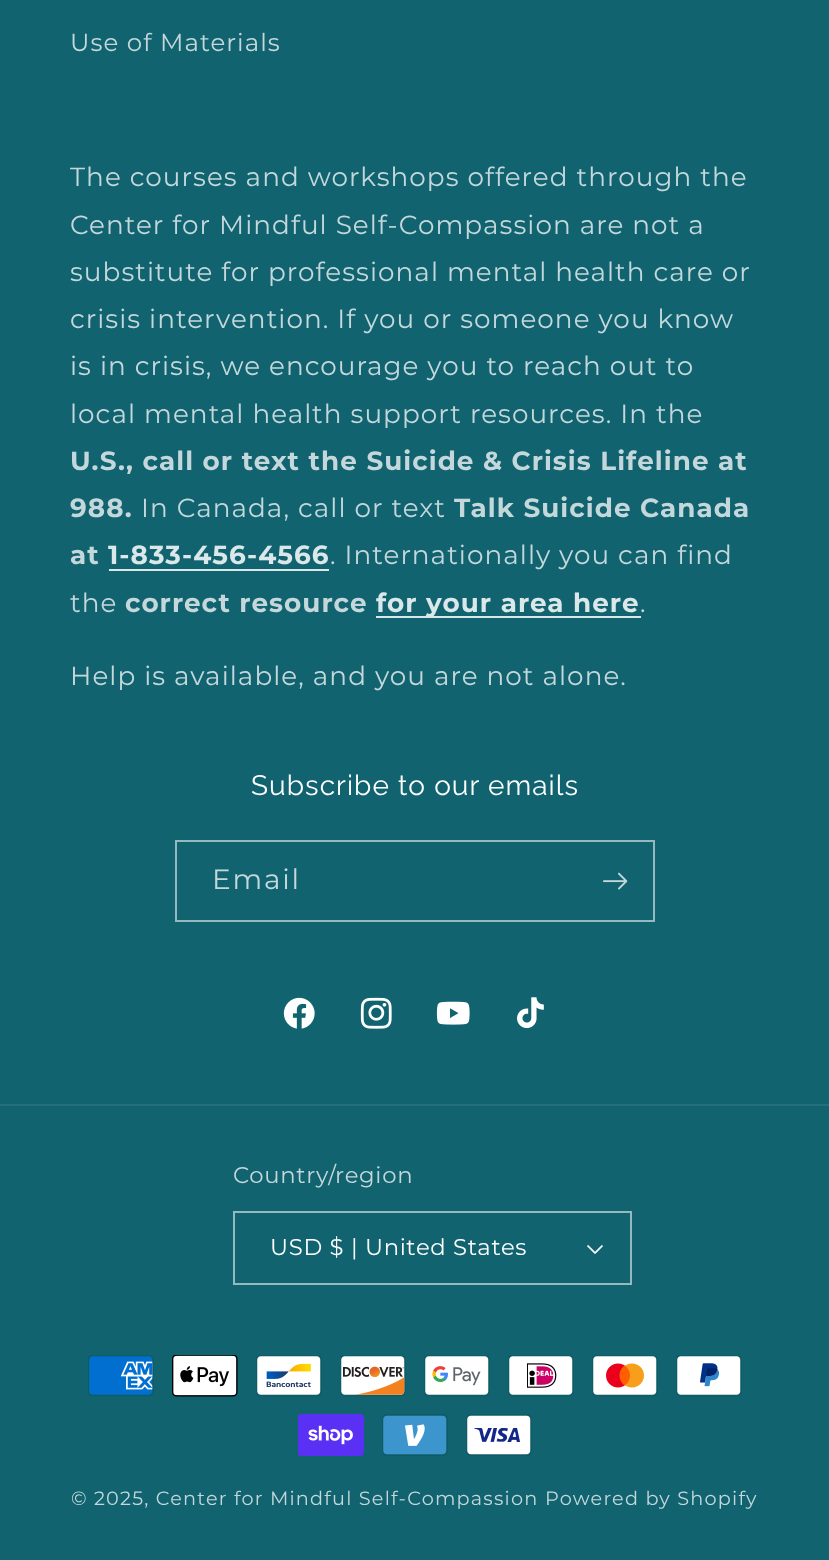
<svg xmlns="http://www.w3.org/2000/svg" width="829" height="1560">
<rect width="100%" height="100%" fill="#116370"/>
<text x="70" y="51" style="font-family:Montserrat;font-size:24.5px;letter-spacing:1.05px;fill:#c4d8db">Use of Materials</text>
<text x="70" y="186" style="font-family:Montserrat;font-size:26.25px;letter-spacing:1.05px;fill:#c4d8db">The courses and workshops offered through the</text>
<text x="70" y="234" style="font-family:Montserrat;font-size:26.25px;letter-spacing:1.05px;fill:#c4d8db">Center for Mindful Self-Compassion are not a</text>
<text x="70" y="281" style="font-family:Montserrat;font-size:26.25px;letter-spacing:1.05px;fill:#c4d8db">substitute for professional mental health care or</text>
<text x="70" y="328" style="font-family:Montserrat;font-size:26.25px;letter-spacing:1.05px;fill:#c4d8db">crisis intervention. If you or someone you know</text>
<text x="70" y="375" style="font-family:Montserrat;font-size:26.25px;letter-spacing:1.05px;fill:#c4d8db">is in crisis, we encourage you to reach out to</text>
<text x="70" y="423" style="font-family:Montserrat;font-size:26.25px;letter-spacing:1.05px;fill:#c4d8db">local mental health support resources. In the</text>
<text x="70" y="470" style="font-family:Montserrat;font-size:26.25px;font-weight:bold;letter-spacing:1.05px;fill:#c4d8db">U.S., call or text the Suicide &amp; Crisis Lifeline at</text>
<text x="70" y="517" style="font-family:Montserrat;font-size:26.25px;font-weight:bold;letter-spacing:1.05px;fill:#c4d8db">988.</text>
<text x="141" y="517" style="font-family:Montserrat;font-size:26.25px;letter-spacing:1.05px;fill:#c4d8db">In Canada, call or text</text>
<text x="454" y="517" style="font-family:Montserrat;font-size:26.25px;font-weight:bold;letter-spacing:1.05px;fill:#c4d8db">Talk Suicide Canada</text>
<text x="70" y="564" style="font-family:Montserrat;font-size:26.25px;font-weight:bold;letter-spacing:1.05px;fill:#c4d8db">at</text>
<text x="108" y="564" style="font-family:Montserrat;font-size:26.25px;font-weight:bold;letter-spacing:1.05px;fill:#dbe8ea">1-833-456-4566</text>
<rect x="109" y="569" width="220" height="2" fill="#dbe8ea"/>
<text x="330" y="564" style="font-family:Montserrat;font-size:26.25px;letter-spacing:1.05px;fill:#c4d8db">. Internationally you can find</text>
<text x="70" y="612" style="font-family:Montserrat;font-size:26.25px;letter-spacing:1.05px;fill:#c4d8db">the</text>
<text x="125" y="612" style="font-family:Montserrat;font-size:26.25px;font-weight:bold;letter-spacing:1.05px;fill:#c4d8db">correct resource</text>
<rect x="376" y="616" width="265" height="2" fill="#dbe8ea"/>
<text x="376" y="612" style="font-family:Montserrat;font-size:26.25px;font-weight:bold;letter-spacing:1.05px;fill:#dbe8ea">for your area here</text>
<text x="640" y="612" style="font-family:Montserrat;font-size:26.25px;letter-spacing:1.05px;fill:#c4d8db">.</text>
<text x="70" y="685" style="font-family:Montserrat;font-size:26.25px;letter-spacing:1.05px;fill:#c4d8db">Help is available, and you are not alone.</text>
<text x="251" y="795" style="font-family:Raleway;font-size:28px;letter-spacing:1.05px;fill:#fff">Subscribe to our emails</text>
<rect x="176" y="841" width="478" height="80" fill="none" stroke="#94b9bf" stroke-width="2"/>
<text x="212" y="889" style="font-family:Montserrat;font-size:28px;letter-spacing:1.75px;fill:#c4d8db">Email</text>
<image x="603" y="872" width="25" height="18" href="media/1.png"/>
<image x="283" y="997" width="32" height="32" href="media/2.png"/>
<image x="360" y="997" width="32" height="32" href="media/3.png"/>
<image x="436" y="1001" width="34" height="24" href="media/4.png"/>
<image x="517" y="997" width="27" height="32" href="media/5.png"/>
<rect y="1104" width="829" height="2" fill="#246f7b"/>
<text x="233" y="1183" style="font-family:Montserrat;font-size:22.75px;letter-spacing:0.7px;fill:#c4d8db">Country/region</text>
<image x="587" y="1245" width="16" height="9" href="media/6.png"/>
<rect x="234" y="1212" width="397" height="72" fill="none" stroke="#94b9bf" stroke-width="2"/>
<text x="270" y="1255" style="font-family:Montserrat;font-size:22.75px;letter-spacing:0.7px;fill:#fff">USD $ | United States</text>
<image x="88" y="1355" width="66" height="42" href="media/7.png"/>
<image x="172" y="1355" width="66" height="42" href="media/8.png"/>
<image x="256" y="1355" width="66" height="42" href="media/9.png"/>
<image x="340" y="1355" width="66" height="42" href="media/10.png"/>
<image x="424" y="1355" width="66" height="42" href="media/11.png"/>
<image x="508" y="1355" width="66" height="42" href="media/12.png"/>
<image x="592" y="1355" width="66" height="42" href="media/13.png"/>
<image x="676" y="1355" width="66" height="42" href="media/14.png"/>
<image x="298" y="1414" width="66" height="42" href="media/15.png"/>
<image x="382" y="1414" width="66" height="42" href="media/16.png"/>
<image x="466" y="1414" width="66" height="42" href="media/17.png"/>
<text x="71" y="1505" style="font-family:Montserrat;font-size:19.25px;letter-spacing:1.2px;fill:#c4d8db">© 2025, Center for Mindful Self-Compassion</text>
<text x="545" y="1505" style="font-family:Montserrat;font-size:19.25px;letter-spacing:1.2px;fill:#c4d8db">Powered by Shopify</text>
</svg>
